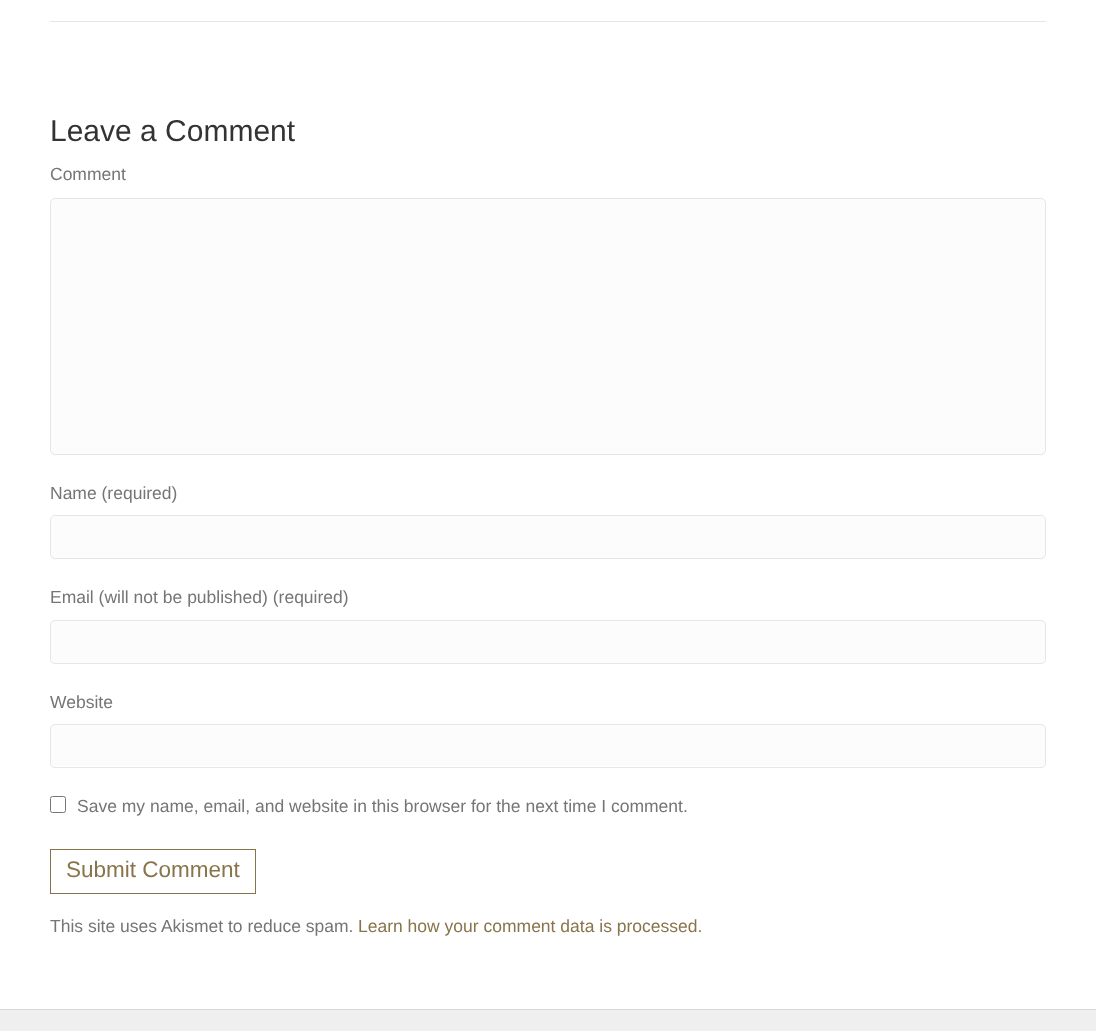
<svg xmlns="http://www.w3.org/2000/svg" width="1096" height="1031">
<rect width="100%" height="100%" fill="#fff"/>
<rect x="50" y="21" width="996" height="1" fill="#e6e6e6"/>
<text x="50" y="141" style="font-family:Liberation Sans;font-size:30px;fill:#333">Leave a Comment</text>
<text x="50" y="180" style="font-family:Liberation Sans;font-size:17.5px;fill:#757575">Comment</text>
<rect x="50.5" y="198.5" width="995" height="256" rx="4.5" fill="#fcfcfc" stroke="#e6e6e6"/>
<text x="50" y="499" style="font-family:Liberation Sans;font-size:17.5px;fill:#757575">Name (required)</text>
<rect x="50.5" y="515.5" width="995" height="43" rx="4.5" fill="#fcfcfc" stroke="#e6e6e6"/>
<text x="50" y="603" style="font-family:Liberation Sans;font-size:17.5px;fill:#757575">Email (will not be published) (required)</text>
<rect x="50.5" y="620.5" width="995" height="43" rx="4.5" fill="#fcfcfc" stroke="#e6e6e6"/>
<text x="50" y="708" style="font-family:Liberation Sans;font-size:17.5px;fill:#757575">Website</text>
<rect x="51" y="725" width="994" height="41" rx="4" fill="#fcfcfc"/>
<rect x="50.5" y="724.5" width="995" height="43" rx="4.5" fill="none" stroke="#e6e6e6"/>
<rect x="50.5" y="796.5" width="15" height="16" rx="2" fill="none" stroke="#767676"/>
<text x="77" y="812" style="font-family:Liberation Sans;font-size:17.5px;fill:#757575">Save my name, email, and website in this browser for the next time I comment.</text>
<rect x="50.5" y="849.5" width="205" height="44" fill="none" stroke="#88744a"/>
<text x="66" y="877" style="font-family:Liberation Sans;font-size:22.5px;fill:#88744a">Submit Comment</text>
<text x="50" y="932" style="font-family:Liberation Sans;font-size:17.5px;fill:#757575">This site uses Akismet to reduce spam.</text>
<text x="358" y="932" style="font-family:Liberation Sans;font-size:17.5px;fill:#88744a">Learn how your comment data is processed.</text>
<rect y="1010" width="1096" height="21" fill="#efefef"/>
<rect y="1009" width="1096" height="1" fill="#d6d6d6"/>
</svg>
